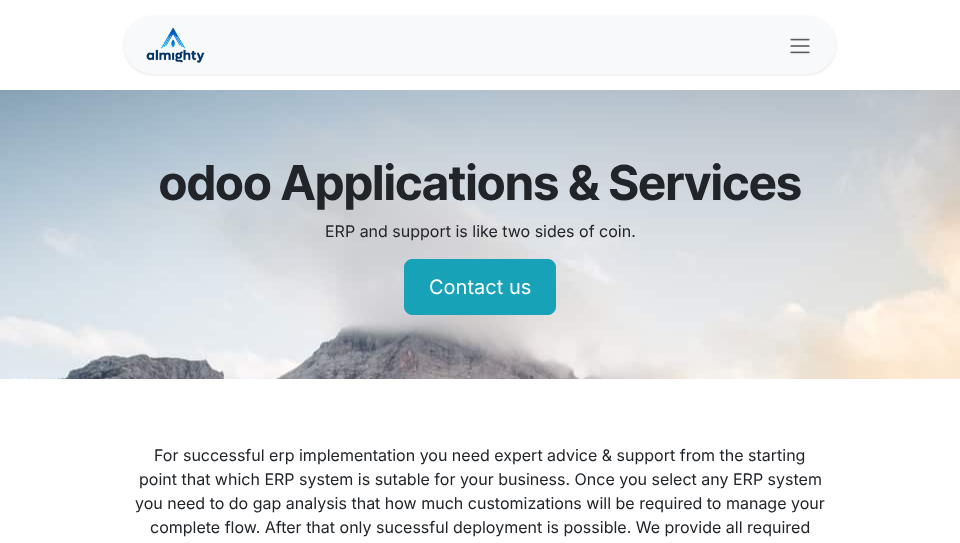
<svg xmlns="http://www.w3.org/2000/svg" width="960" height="543">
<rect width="100%" height="100%" fill="#fff"/>
<rect x="124" y="17" width="712" height="58" rx="29" fill="#0000001a" filter="blur(1.5px)"/>
<rect x="124" y="16" width="712" height="58" rx="29" fill="#f8f9fa"/>
<image x="146" y="27" width="59" height="36" href="media/1.png"/>
<image x="790" y="38" width="20" height="16" href="media/2.png"/>
<image x="0" y="90" width="960" height="289" href="media/3.png"/>
<text x="159" y="200" style="font-family:Inter Tight;font-size:48px;font-weight:bold;fill:#212529">odoo Applications &amp; Services</text>
<text x="325" y="237" style="font-family:Inter;font-size:16px;fill:#212529">ERP and support is like two sides of coin.</text>
<rect x="404.5" y="259.5" width="151" height="55" rx="7.5" fill="#17a2b8" stroke="#17a2b8"/>
<text x="429" y="294" style="font-family:Inter;font-size:20px;fill:#fff">Contact us</text>
<text x="154" y="461" style="font-family:Inter;font-size:16px;fill:#212529">For successful erp implementation you need expert advice &amp; support from the starting</text>
<text x="139" y="485" style="font-family:Inter;font-size:16px;fill:#212529">point that which ERP system is sutable for your business. Once you select any ERP system</text>
<text x="135" y="509" style="font-family:Inter;font-size:16px;fill:#212529">you need to do gap analysis that how much customizations will be required to manage your</text>
<text x="150" y="533" style="font-family:Inter;font-size:16px;fill:#212529">complete flow. After that only sucessful deployment is possible. We provide all required</text>
</svg>
